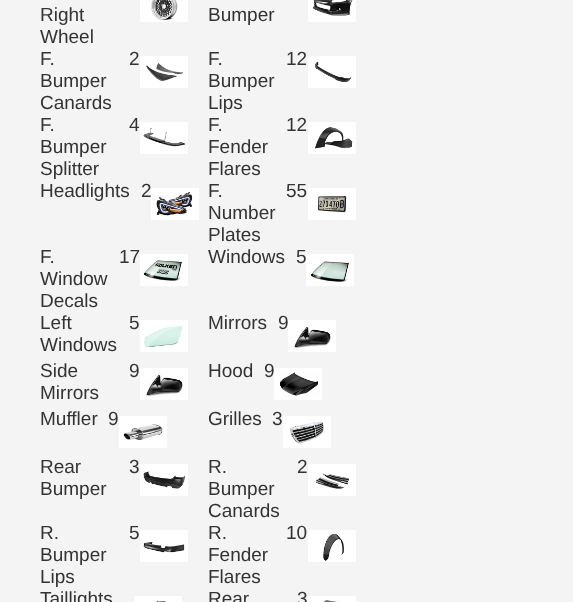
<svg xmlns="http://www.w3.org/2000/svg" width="573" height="602">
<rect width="100%" height="100%" fill="#f4f4f4"/>
<text x="40" y="21" style="font-family:Liberation Sans;font-size:19px;fill:#333">Right</text>
<text x="40" y="43" style="font-family:Liberation Sans;font-size:19px;fill:#333">Wheel</text>
<image x="140" y="0" width="48" height="22" href="media/1.png"/>
<text x="208" y="21" style="font-family:Liberation Sans;font-size:19px;fill:#333">Bumper</text>
<image x="308" y="0" width="48" height="22" href="media/2.png"/>
<text x="40" y="65" style="font-family:Liberation Sans;font-size:19px;fill:#333">F.</text>
<text x="40" y="87" style="font-family:Liberation Sans;font-size:19px;fill:#333">Bumper</text>
<text x="40" y="109" style="font-family:Liberation Sans;font-size:19px;fill:#333">Canards</text>
<text x="129" y="65" style="font-family:Liberation Sans;font-size:19px;fill:#333">2</text>
<image x="140" y="56" width="48" height="32" href="media/3.png"/>
<text x="208" y="65" style="font-family:Liberation Sans;font-size:19px;fill:#333">F.</text>
<text x="208" y="87" style="font-family:Liberation Sans;font-size:19px;fill:#333">Bumper</text>
<text x="208" y="109" style="font-family:Liberation Sans;font-size:19px;fill:#333">Lips</text>
<text x="286" y="65" style="font-family:Liberation Sans;font-size:19px;fill:#333">12</text>
<image x="308" y="56" width="48" height="32" href="media/4.png"/>
<text x="40" y="131" style="font-family:Liberation Sans;font-size:19px;fill:#333">F.</text>
<text x="40" y="153" style="font-family:Liberation Sans;font-size:19px;fill:#333">Bumper</text>
<text x="40" y="175" style="font-family:Liberation Sans;font-size:19px;fill:#333">Splitter</text>
<text x="129" y="131" style="font-family:Liberation Sans;font-size:19px;fill:#333">4</text>
<image x="140" y="122" width="48" height="32" href="media/5.png"/>
<text x="208" y="131" style="font-family:Liberation Sans;font-size:19px;fill:#333">F.</text>
<text x="208" y="153" style="font-family:Liberation Sans;font-size:19px;fill:#333">Fender</text>
<text x="208" y="175" style="font-family:Liberation Sans;font-size:19px;fill:#333">Flares</text>
<text x="286" y="131" style="font-family:Liberation Sans;font-size:19px;fill:#333">12</text>
<image x="308" y="122" width="48" height="32" href="media/6.png"/>
<text x="40" y="197" style="font-family:Liberation Sans;font-size:19px;fill:#333">Headlights</text>
<text x="141" y="197" style="font-family:Liberation Sans;font-size:19px;fill:#333">2</text>
<image x="151" y="188" width="48" height="32" href="media/7.png"/>
<text x="208" y="197" style="font-family:Liberation Sans;font-size:19px;fill:#333">F.</text>
<text x="208" y="219" style="font-family:Liberation Sans;font-size:19px;fill:#333">Number</text>
<text x="208" y="241" style="font-family:Liberation Sans;font-size:19px;fill:#333">Plates</text>
<text x="286" y="197" style="font-family:Liberation Sans;font-size:19px;fill:#333">55</text>
<image x="308" y="188" width="48" height="32" href="media/8.png"/>
<text x="40" y="263" style="font-family:Liberation Sans;font-size:19px;fill:#333">F.</text>
<text x="40" y="285" style="font-family:Liberation Sans;font-size:19px;fill:#333">Window</text>
<text x="40" y="307" style="font-family:Liberation Sans;font-size:19px;fill:#333">Decals</text>
<text x="119" y="263" style="font-family:Liberation Sans;font-size:19px;fill:#333">17</text>
<image x="140" y="254" width="48" height="32" href="media/9.png"/>
<text x="208" y="263" style="font-family:Liberation Sans;font-size:19px;fill:#333">Windows</text>
<text x="296" y="263" style="font-family:Liberation Sans;font-size:19px;fill:#333">5</text>
<image x="306" y="254" width="48" height="32" href="media/10.png"/>
<text x="40" y="329" style="font-family:Liberation Sans;font-size:19px;fill:#333">Left</text>
<text x="40" y="351" style="font-family:Liberation Sans;font-size:19px;fill:#333">Windows</text>
<text x="129" y="329" style="font-family:Liberation Sans;font-size:19px;fill:#333">5</text>
<image x="140" y="320" width="48" height="32" href="media/11.png"/>
<text x="208" y="329" style="font-family:Liberation Sans;font-size:19px;fill:#333">Mirrors</text>
<text x="278" y="329" style="font-family:Liberation Sans;font-size:19px;fill:#333">9</text>
<image x="288" y="320" width="48" height="32" href="media/12.png"/>
<text x="40" y="377" style="font-family:Liberation Sans;font-size:19px;fill:#333">Side</text>
<text x="40" y="399" style="font-family:Liberation Sans;font-size:19px;fill:#333">Mirrors</text>
<text x="129" y="377" style="font-family:Liberation Sans;font-size:19px;fill:#333">9</text>
<image x="140" y="368" width="48" height="32" href="media/13.png"/>
<text x="208" y="377" style="font-family:Liberation Sans;font-size:19px;fill:#333">Hood</text>
<text x="264" y="377" style="font-family:Liberation Sans;font-size:19px;fill:#333">9</text>
<image x="274" y="368" width="48" height="32" href="media/14.png"/>
<text x="40" y="425" style="font-family:Liberation Sans;font-size:19px;fill:#333">Muffler</text>
<text x="108" y="425" style="font-family:Liberation Sans;font-size:19px;fill:#333">9</text>
<image x="119" y="416" width="48" height="32" href="media/15.png"/>
<text x="208" y="425" style="font-family:Liberation Sans;font-size:19px;fill:#333">Grilles</text>
<text x="272" y="425" style="font-family:Liberation Sans;font-size:19px;fill:#333">3</text>
<image x="283" y="416" width="48" height="32" href="media/16.png"/>
<text x="40" y="473" style="font-family:Liberation Sans;font-size:19px;fill:#333">Rear</text>
<text x="40" y="495" style="font-family:Liberation Sans;font-size:19px;fill:#333">Bumper</text>
<text x="129" y="473" style="font-family:Liberation Sans;font-size:19px;fill:#333">3</text>
<image x="140" y="464" width="48" height="32" href="media/17.png"/>
<text x="208" y="473" style="font-family:Liberation Sans;font-size:19px;fill:#333">R.</text>
<text x="208" y="495" style="font-family:Liberation Sans;font-size:19px;fill:#333">Bumper</text>
<text x="208" y="517" style="font-family:Liberation Sans;font-size:19px;fill:#333">Canards</text>
<text x="297" y="473" style="font-family:Liberation Sans;font-size:19px;fill:#333">2</text>
<image x="308" y="464" width="48" height="32" href="media/18.png"/>
<text x="40" y="539" style="font-family:Liberation Sans;font-size:19px;fill:#333">R.</text>
<text x="40" y="561" style="font-family:Liberation Sans;font-size:19px;fill:#333">Bumper</text>
<text x="40" y="583" style="font-family:Liberation Sans;font-size:19px;fill:#333">Lips</text>
<text x="129" y="539" style="font-family:Liberation Sans;font-size:19px;fill:#333">5</text>
<image x="140" y="530" width="48" height="32" href="media/19.png"/>
<text x="208" y="539" style="font-family:Liberation Sans;font-size:19px;fill:#333">R.</text>
<text x="208" y="561" style="font-family:Liberation Sans;font-size:19px;fill:#333">Fender</text>
<text x="208" y="583" style="font-family:Liberation Sans;font-size:19px;fill:#333">Flares</text>
<text x="286" y="539" style="font-family:Liberation Sans;font-size:19px;fill:#333">10</text>
<image x="308" y="530" width="48" height="32" href="media/20.png"/>
<text x="40" y="605" style="font-family:Liberation Sans;font-size:19px;fill:#333">Taillights</text>
<image x="134" y="596" width="48" height="6" href="media/21.png"/>
<text x="208" y="605" style="font-family:Liberation Sans;font-size:19px;fill:#333">Rear</text>
<text x="297" y="605" style="font-family:Liberation Sans;font-size:19px;fill:#333">3</text>
<image x="308" y="596" width="48" height="6" href="media/22.png"/>
</svg>
